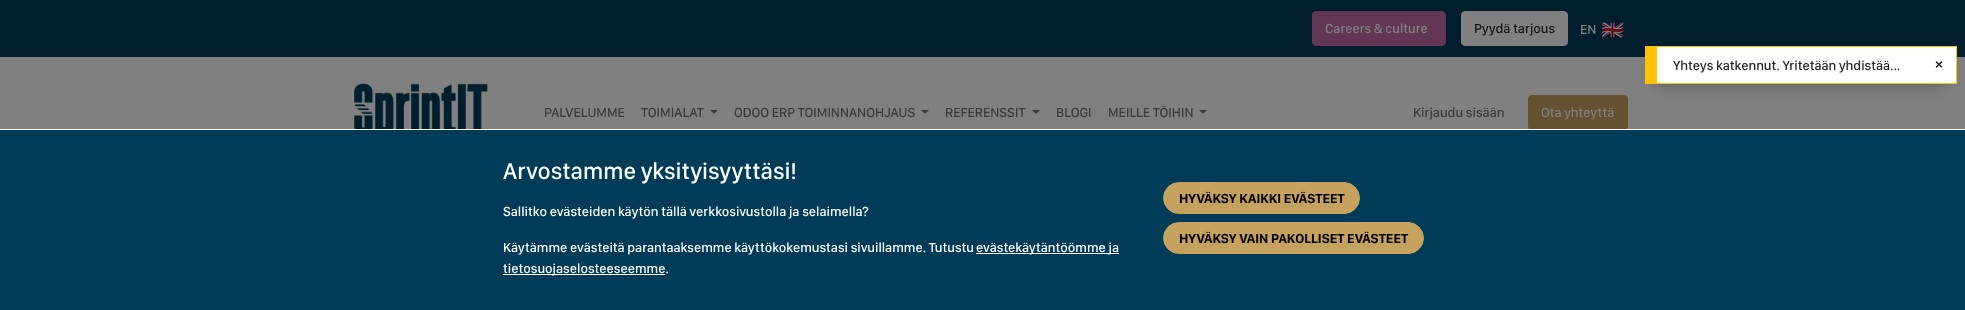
<svg xmlns="http://www.w3.org/2000/svg" width="1965" height="310">
<rect width="100%" height="100%" fill="#808080"/>
<rect width="1965" height="57" fill="#001e2c"/>
<rect x="1312.5" y="11.5" width="133" height="34" rx="3.5" fill="#613755" stroke="#613755"/>
<text x="1325" y="33" style="font-family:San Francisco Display;font-size:13.6px;font-weight:500;fill:#808080">Careers &amp; culture</text>
<rect x="1461.5" y="11.5" width="106" height="34" rx="3.5" fill="#808080" stroke="#808080"/>
<text x="1474" y="33" style="font-family:San Francisco Display;font-size:13.6px;font-weight:500;fill:#111315">Pyydä tarjous</text>
<text x="1580" y="34" style="font-family:San Francisco Display;font-size:13.6px;font-weight:500;fill:#808080">EN</text>
<image x="1602" y="22" width="22" height="16" href="media/1.png"/>
<image x="354" y="83" width="134" height="46" href="media/2.png"/>
<text x="544" y="117" style="font-family:San Francisco Display;font-size:13.6px;font-weight:500;fill:#3a3a3a">PALVELUMME</text>
<text x="641" y="117" style="font-family:San Francisco Display;font-size:13.6px;font-weight:500;fill:#3a3a3a">TOIMIALAT</text>
<path d="M710 110h8l-4 4z" fill="#3a3a3a"/>
<text x="734" y="117" style="font-family:San Francisco Display;font-size:13.6px;font-weight:500;fill:#3a3a3a">ODOO ERP TOIMINNANOHJAUS</text>
<path d="M921 110h8l-4 4z" fill="#3a3a3a"/>
<text x="945" y="117" style="font-family:San Francisco Display;font-size:13.6px;font-weight:500;fill:#3a3a3a">REFERENSSIT</text>
<path d="M1032 110h8l-4 4z" fill="#3a3a3a"/>
<text x="1056" y="117" style="font-family:San Francisco Display;font-size:13.6px;font-weight:500;fill:#3a3a3a">BLOGI</text>
<text x="1108" y="117" style="font-family:San Francisco Display;font-size:13.6px;font-weight:500;fill:#3a3a3a">MEILLE TÖIHIN</text>
<path d="M1199 110h8l-4 4z" fill="#3a3a3a"/>
<text x="1413" y="117" style="font-family:San Francisco Display;font-size:13.6px;font-weight:500;fill:#3a3a3a">Kirjaudu sisään</text>
<rect x="1528.5" y="95.5" width="99" height="34" rx="3.5" fill="#63512f" stroke="#63512f"/>
<text x="1541" y="117" style="font-family:San Francisco Display;font-size:13.6px;font-weight:500;fill:#808080">Ota yhteyttä</text>
<rect y="130" width="1965" height="180" fill="#003c57"/>
<rect y="129" width="1965" height="1" fill="#fff"/>
<text x="503" y="179" style="font-family:San Francisco Display;font-size:23.75px;font-weight:500;fill:#fff">Arvostamme yksityisyyttäsi!</text>
<text x="503" y="216" style="font-family:San Francisco Display;font-size:13.6px;font-weight:500;fill:#fff">Sallitko evästeiden käytön tällä verkkosivustolla ja selaimella?</text>
<text x="503" y="252" style="font-family:San Francisco Display;font-size:13.6px;font-weight:500;fill:#fff">Käytämme evästeitä parantaaksemme käyttökokemustasi sivuillamme. Tutustu</text>
<rect x="976" y="253" width="143" height="1" fill="#fff"/>
<text x="976" y="252" style="font-family:San Francisco Display;font-size:13.6px;font-weight:500;fill:#fff">evästekäytäntöömme ja</text>
<rect x="503" y="274" width="162" height="1" fill="#fff"/>
<text x="503" y="273" style="font-family:San Francisco Display;font-size:13.6px;font-weight:500;fill:#fff">tietosuojaselosteeseemme.</text>
<rect x="1163.5" y="182.5" width="196" height="31" rx="15.5" fill="#c5a25e" stroke="#c5a25e"/>
<text x="1179" y="203" style="font-family:San Francisco Display;font-size:13.6px;font-weight:bold;fill:#000">HYVÄKSY KAIKKI EVÄSTEET</text>
<rect x="1163.5" y="222.5" width="260" height="31" rx="15.5" fill="#c5a25e" stroke="#c5a25e"/>
<text x="1179" y="243" style="font-family:San Francisco Display;font-size:13.6px;font-weight:bold;fill:#000">HYVÄKSY VAIN PAKOLLISET EVÄSTEET</text>
<rect x="1655" y="68" width="292" height="18" fill="#00000040" filter="blur(7px)"/>
<rect x="1657" y="47" width="299" height="36" fill="#fff"/>
<rect x="1657" y="46" width="300" height="1" fill="#ffc107"/>
<rect x="1956" y="46" width="1" height="38" fill="#ffc107"/>
<rect x="1657" y="83" width="300" height="1" fill="#ffc107"/>
<rect x="1645" y="46" width="12" height="38" fill="#ffc107"/>
<text x="1673" y="70" style="font-family:San Francisco Display;font-size:13.6px;font-weight:500;fill:#212529">Yhteys katkennut. Yritetään yhdistää...</text>
<text x="1935" y="69" style="font-family:Liberation Sans;font-size:13.6px;font-weight:bold;fill:#212529">×</text>
</svg>
